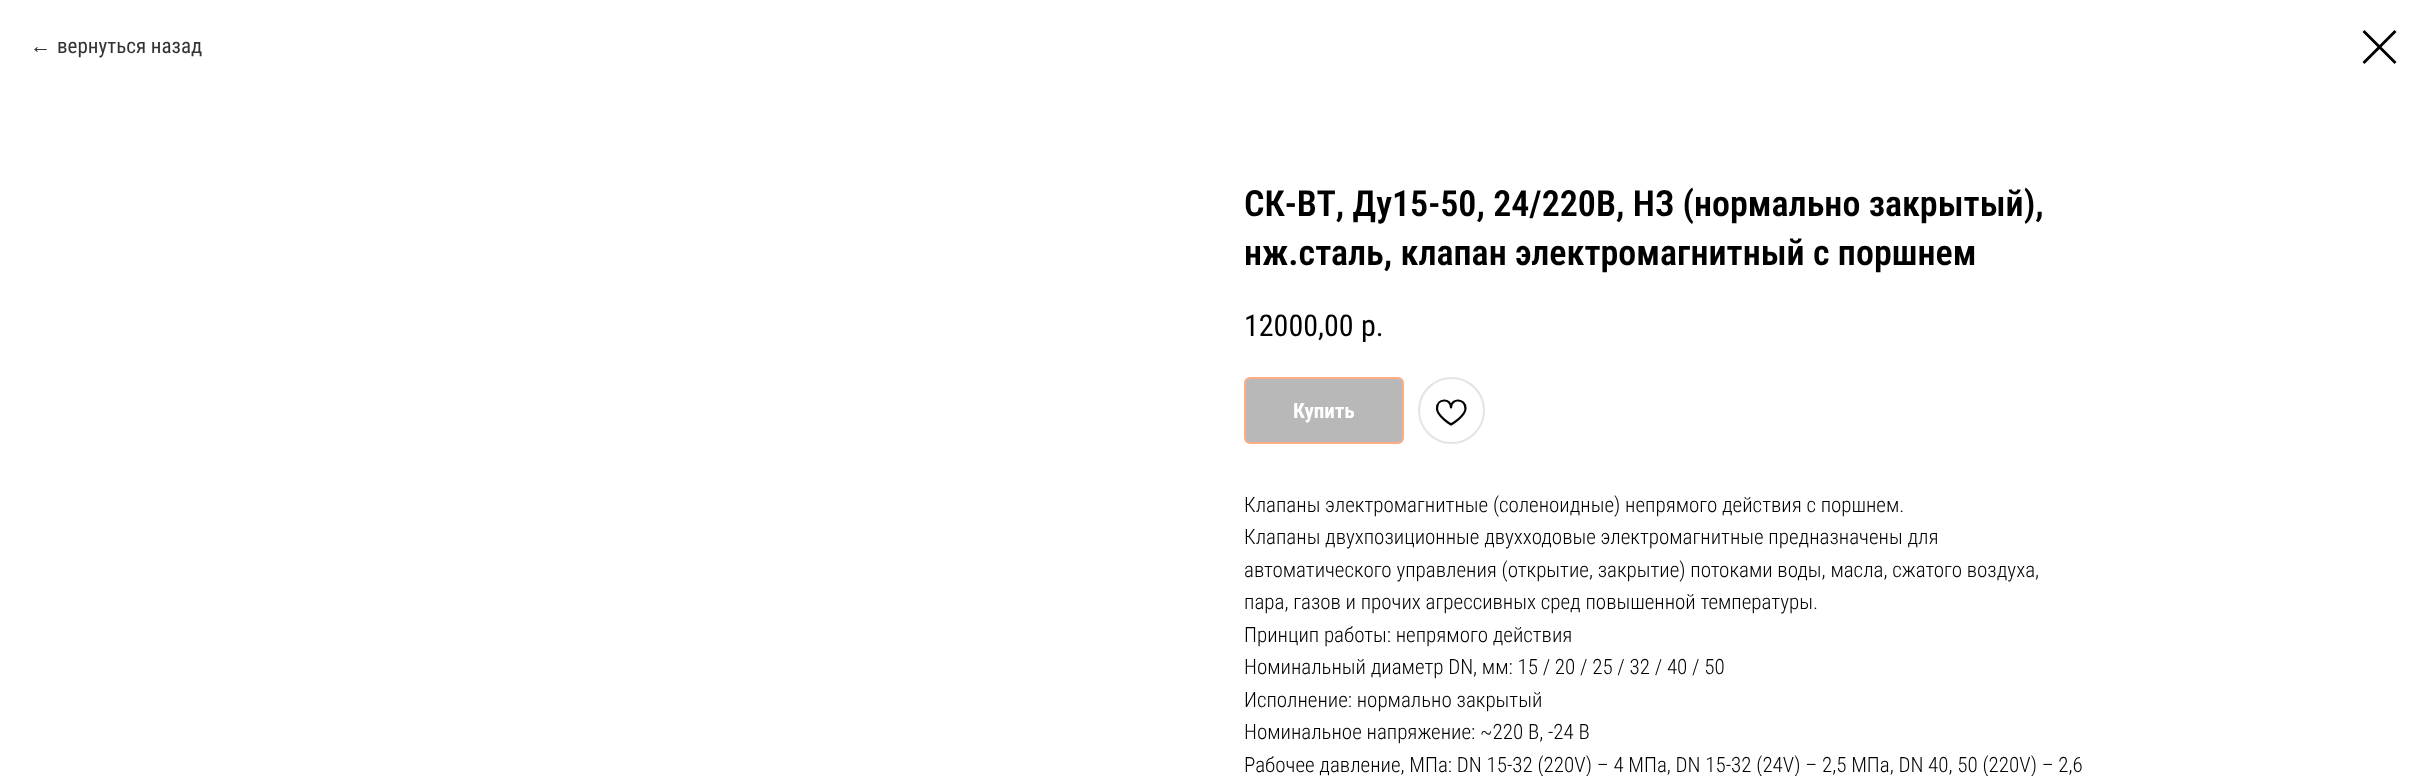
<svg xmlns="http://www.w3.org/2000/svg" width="2426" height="776">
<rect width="100%" height="100%" fill="#fff"/>
<text x="30" y="53" style="font-family:Liberation Sans;font-size:21px;fill:#333">←</text>
<text x="57" y="53" style="font-family:Roboto Condensed;font-size:21px;fill:#333">вернуться назад</text>
<path d="M2362.5 32l2-2l32 32l-2 2z" fill="#000" fill-rule="evenodd"/>
<path d="M2394.5 30l2 2l-32 32l-2-2z" fill="#000" fill-rule="evenodd"/>
<text x="1244" y="216" style="font-family:Roboto Condensed;font-size:36px;font-weight:600;fill:#000">СК-ВТ, Ду15-50, 24/220В, НЗ (нормально закрытый),</text>
<text x="1244" y="265" style="font-family:Roboto Condensed;font-size:36px;font-weight:600;fill:#000">нж.сталь, клапан электромагнитный с поршнем</text>
<text x="1244" y="336" style="font-family:Roboto Condensed;font-size:30px;fill:#000">12000,00</text>
<text x="1361" y="336" style="font-family:Roboto Condensed;font-size:30px;fill:#000">р.</text>
<rect x="1245" y="378" width="158" height="65" rx="5" fill="#b8b8b8" stroke="#fdac84" stroke-width="2"/>
<text x="1293" y="418" style="font-family:Roboto Condensed;font-size:21px;font-weight:bold;fill:#fff">Купить</text>
<circle cx="1451.5" cy="410.5" r="32.5" fill="none" stroke="#e4e4e4" stroke-width="2"/>
<path d="M1465.5 408.5c0 7.5-14.5 16-14.5 16c0 0-14-8.5-14-16c0-10.5 14-10.5 14-1c0-9.5 14.5-9.5 14.5 1z" fill="none" stroke="#000" stroke-width="2.2" stroke-linejoin="round"/>
<text x="1244" y="512" style="font-family:Roboto Condensed;font-size:21px;font-weight:300;fill:#000">Клапаны электромагнитные (соленоидные) непрямого действия с поршнем.</text>
<text x="1244" y="544" style="font-family:Roboto Condensed;font-size:21px;font-weight:300;fill:#000">Клапаны двухпозиционные двухходовые электромагнитные предназначены для</text>
<text x="1244" y="577" style="font-family:Roboto Condensed;font-size:21px;font-weight:300;fill:#000">автоматического управления (открытие, закрытие) потоками воды, масла, сжатого воздуха,</text>
<text x="1244" y="609" style="font-family:Roboto Condensed;font-size:21px;font-weight:300;fill:#000">пара, газов и прочих агрессивных сред повышенной температуры.</text>
<text x="1244" y="642" style="font-family:Roboto Condensed;font-size:21px;font-weight:300;fill:#000">Принцип работы: непрямого действия</text>
<text x="1244" y="674" style="font-family:Roboto Condensed;font-size:21px;font-weight:300;fill:#000">Номинальный диаметр DN, мм: 15 / 20 / 25 / 32 / 40 / 50</text>
<text x="1244" y="707" style="font-family:Roboto Condensed;font-size:21px;font-weight:300;fill:#000">Исполнение: нормально закрытый</text>
<text x="1244" y="739" style="font-family:Roboto Condensed;font-size:21px;font-weight:300;fill:#000">Номинальное напряжение: ~220 В, -24 В</text>
<text x="1244" y="772" style="font-family:Roboto Condensed;font-size:21px;font-weight:300;fill:#000">Рабочее давление, МПа: DN 15-32 (220V) – 4 МПа, DN 15-32 (24V) – 2,5 МПа, DN 40, 50 (220V) – 2,6</text>
</svg>
